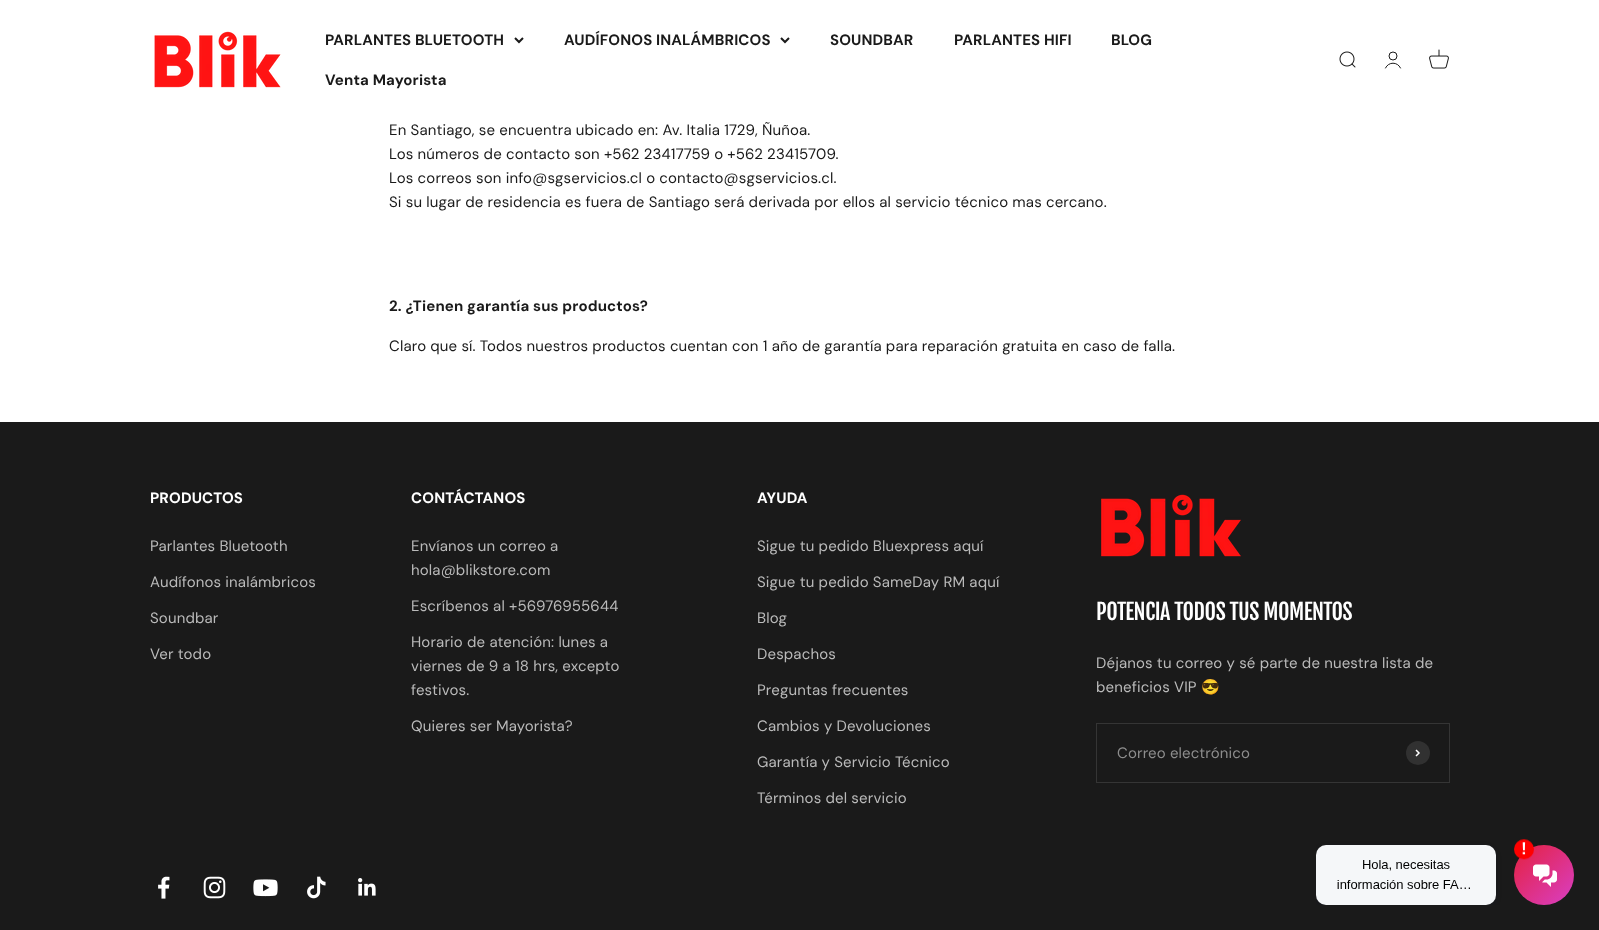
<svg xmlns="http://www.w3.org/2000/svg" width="1599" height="930">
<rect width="100%" height="100%" fill="#fff"/>
<image x="154" y="31" width="127" height="57" href="media/1.png"/>
<text x="325" y="45" style="font-family:DM Sans;font-size:15px;font-weight:bold;letter-spacing:0.15px;fill:#1a1a1a">PARLANTES BLUETOOTH</text>
<path d="M515 38l4 4l4-4" fill="none" stroke="#1a1a1a" stroke-width="2"/>
<text x="564" y="45" style="font-family:DM Sans;font-size:15px;font-weight:bold;letter-spacing:0.15px;fill:#1a1a1a">AUDÍFONOS INALÁMBRICOS</text>
<path d="M781 38l4 4l4-4" fill="none" stroke="#1a1a1a" stroke-width="2"/>
<text x="830" y="45" style="font-family:DM Sans;font-size:15px;font-weight:bold;letter-spacing:0.15px;fill:#1a1a1a">SOUNDBAR</text>
<text x="954" y="45" style="font-family:DM Sans;font-size:15px;font-weight:bold;letter-spacing:0.15px;fill:#1a1a1a">PARLANTES HIFI</text>
<text x="1111" y="45" style="font-family:DM Sans;font-size:15px;font-weight:bold;letter-spacing:0.15px;fill:#1a1a1a">BLOG</text>
<text x="325" y="85" style="font-family:DM Sans;font-size:15px;font-weight:bold;letter-spacing:0.15px;fill:#1a1a1a">Venta Mayorista</text>
<image x="1339" y="51" width="17" height="17" href="media/2.png"/>
<circle cx="1393" cy="56" r="4" fill="none" stroke="#1a1a1a"/>
<path d="M1385.5 68c3-6.5 12-6.5 15 0" fill="none" stroke="#1a1a1a" stroke-linecap="round"/>
<image x="1429" y="49" width="20" height="20" href="media/3.png"/>
<text x="389" y="135" style="font-family:DM Sans;font-size:15px;letter-spacing:0.15px;fill:#1a1a1a">En Santiago, se encuentra ubicado en: Av. Italia 1729, Ñuñoa.</text>
<text x="389" y="159" style="font-family:DM Sans;font-size:15px;letter-spacing:0.15px;fill:#1a1a1a">Los números de contacto son +562 23417759 o +562 23415709.</text>
<text x="389" y="183" style="font-family:DM Sans;font-size:15px;letter-spacing:0.15px;fill:#1a1a1a">Los correos son info@sgservicios.cl o contacto@sgservicios.cl.</text>
<text x="389" y="207" style="font-family:DM Sans;font-size:15px;letter-spacing:0.15px;fill:#1a1a1a">Si su lugar de residencia es fuera de Santiago será derivada por ellos al servicio técnico mas cercano.</text>
<text x="389" y="311" style="font-family:DM Sans;font-size:15px;font-weight:bold;letter-spacing:0.15px;fill:#1a1a1a">2. ¿Tienen garantía sus productos?</text>
<text x="389" y="351" style="font-family:DM Sans;font-size:15px;letter-spacing:0.15px;fill:#1a1a1a">Claro que sí. Todos nuestros productos cuentan con 1 año de garantía para reparación gratuita en caso de falla.</text>
<rect y="422" width="1599" height="508" fill="#1a1a1a"/>
<text x="150" y="503" style="font-family:DM Sans;font-size:15px;font-weight:bold;letter-spacing:0.15px;fill:#fff">PRODUCTOS</text>
<text x="150" y="551" style="font-family:DM Sans;font-size:15px;letter-spacing:0.15px;fill:#bababa">Parlantes Bluetooth</text>
<text x="150" y="587" style="font-family:DM Sans;font-size:15px;letter-spacing:0.15px;fill:#bababa">Audífonos inalámbricos</text>
<text x="150" y="623" style="font-family:DM Sans;font-size:15px;letter-spacing:0.15px;fill:#bababa">Soundbar</text>
<text x="150" y="659" style="font-family:DM Sans;font-size:15px;letter-spacing:0.15px;fill:#bababa">Ver todo</text>
<text x="411" y="503" style="font-family:DM Sans;font-size:15px;font-weight:bold;letter-spacing:0.15px;fill:#fff">CONTÁCTANOS</text>
<text x="411" y="551" style="font-family:DM Sans;font-size:15px;letter-spacing:0.15px;fill:#bababa">Envíanos un correo a</text>
<text x="411" y="575" style="font-family:DM Sans;font-size:15px;letter-spacing:0.15px;fill:#bababa">hola@blikstore.com</text>
<text x="411" y="611" style="font-family:DM Sans;font-size:15px;letter-spacing:0.15px;fill:#bababa">Escríbenos al +56976955644</text>
<text x="411" y="647" style="font-family:DM Sans;font-size:15px;letter-spacing:0.15px;fill:#bababa">Horario de atención: lunes a</text>
<text x="411" y="671" style="font-family:DM Sans;font-size:15px;letter-spacing:0.15px;fill:#bababa">viernes de 9 a 18 hrs, excepto</text>
<text x="411" y="695" style="font-family:DM Sans;font-size:15px;letter-spacing:0.15px;fill:#bababa">festivos.</text>
<text x="411" y="731" style="font-family:DM Sans;font-size:15px;letter-spacing:0.15px;fill:#bababa">Quieres ser Mayorista?</text>
<text x="757" y="503" style="font-family:DM Sans;font-size:15px;font-weight:bold;letter-spacing:0.15px;fill:#fff">AYUDA</text>
<text x="757" y="551" style="font-family:DM Sans;font-size:15px;letter-spacing:0.15px;fill:#bababa">Sigue tu pedido Bluexpress aquí</text>
<text x="757" y="587" style="font-family:DM Sans;font-size:15px;letter-spacing:0.15px;fill:#bababa">Sigue tu pedido SameDay RM aquí</text>
<text x="757" y="623" style="font-family:DM Sans;font-size:15px;letter-spacing:0.15px;fill:#bababa">Blog</text>
<text x="757" y="659" style="font-family:DM Sans;font-size:15px;letter-spacing:0.15px;fill:#bababa">Despachos</text>
<text x="757" y="695" style="font-family:DM Sans;font-size:15px;letter-spacing:0.15px;fill:#bababa">Preguntas frecuentes</text>
<text x="757" y="731" style="font-family:DM Sans;font-size:15px;letter-spacing:0.15px;fill:#bababa">Cambios y Devoluciones</text>
<text x="757" y="767" style="font-family:DM Sans;font-size:15px;letter-spacing:0.15px;fill:#bababa">Garantía y Servicio Técnico</text>
<text x="757" y="803" style="font-family:DM Sans;font-size:15px;letter-spacing:0.15px;fill:#bababa">Términos del servicio</text>
<image x="1101" y="494" width="140" height="63" href="media/4.png"/>
<text x="1096" y="620" style="font-family:Fjalla One;font-size:22px;letter-spacing:-0.45px;fill:#fff">POTENCIA TODOS TUS MOMENTOS</text>
<text x="1096" y="668" style="font-family:DM Sans;font-size:15px;letter-spacing:0.15px;fill:#bababa">Déjanos tu correo y sé parte de nuestra lista de</text>
<text x="1096" y="692" style="font-family:DM Sans;font-size:15px;letter-spacing:0.15px;fill:#bababa">beneficios VIP</text>
<text x="1201" y="692" style="font-family:Noto Color Emoji;font-size:15px;letter-spacing:0.15px;fill:#bababa">😎</text>
<rect x="1096.5" y="723.5" width="353" height="59" fill="none" stroke="#353535"/>
<text x="1117" y="758" style="font-family:DM Sans;font-size:15px;letter-spacing:0.15px;fill:#8d8d8d">Correo electrónico</text>
<circle cx="1418" cy="753" r="12" fill="#313131"/>
<path d="M1416 756l3-3l-3-3" fill="none" stroke="#fff" stroke-width="1.5"/>
<image x="158" y="876" width="12" height="23" href="media/5.png"/>
<image x="203" y="876" width="23" height="23" href="media/6.png"/>
<image x="253" y="879" width="25" height="18" href="media/7.png"/>
<image x="307" y="876" width="19" height="23" href="media/8.png"/>
<image x="358" y="878" width="18" height="18" href="media/9.png"/>
<image x="1316" y="839" width="258" height="66" href="media/10.png"/>
</svg>
